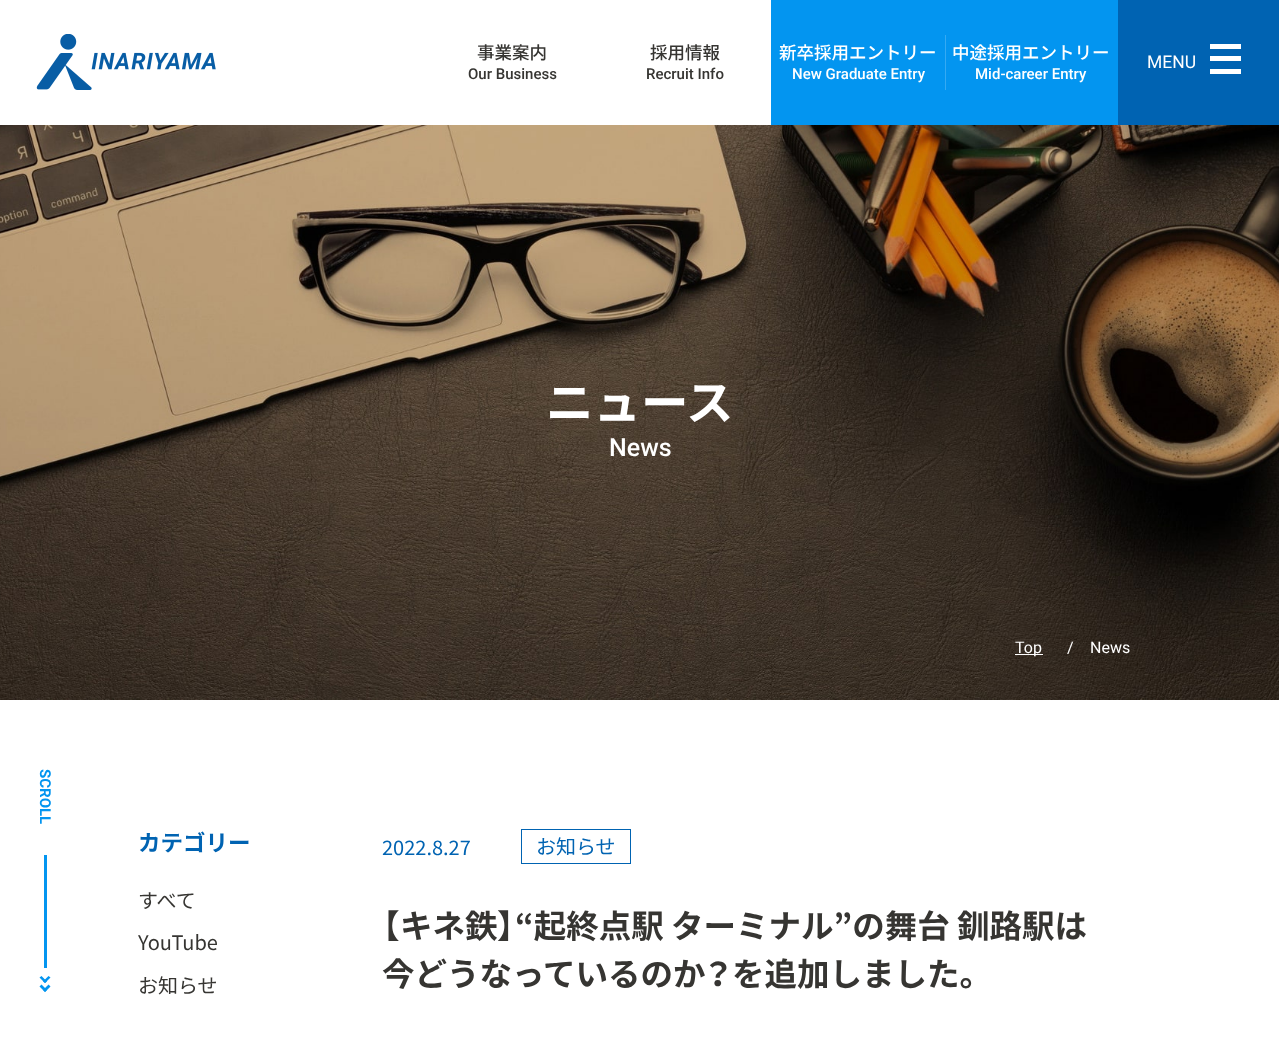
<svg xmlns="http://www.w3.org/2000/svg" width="1279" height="1056">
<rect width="100%" height="100%" fill="#fff"/>
<rect x="1118" width="161" height="125" fill="#0063b2"/>
<image x="36" y="34" width="180" height="56" href="media/1.png"/>
<text x="477" y="59" style="font-family:Noto Sans JP;font-size:17.5px;font-weight:500;fill:#363532">事業案内</text>
<text x="468" y="79" style="font-family:Roboto;font-size:15px;font-weight:500;fill:#363532">Our Business</text>
<text x="650" y="59" style="font-family:Noto Sans JP;font-size:17.5px;font-weight:500;fill:#363532">採用情報</text>
<text x="646" y="79" style="font-family:Roboto;font-size:15px;font-weight:500;fill:#363532">Recruit Info</text>
<rect x="771" width="347" height="125" fill="#0395f0"/>
<text x="779" y="59" style="font-family:Noto Sans JP;font-size:17.5px;font-weight:500;fill:#fff">新卒採用エントリー</text>
<text x="792" y="79" style="font-family:Roboto;font-size:15px;font-weight:500;fill:#fff">New Graduate Entry</text>
<rect x="945" y="35" width="1" height="55" fill="#35aaf3"/>
<text x="952" y="59" style="font-family:Noto Sans JP;font-size:17.5px;font-weight:500;fill:#fff">中途採用エントリー</text>
<text x="975" y="79" style="font-family:Roboto;font-size:15px;font-weight:500;fill:#fff">Mid-career Entry</text>
<text x="1147" y="68" style="font-family:Roboto;font-size:17.5px;fill:#fff">MENU</text>
<rect x="1210" y="56" width="31" height="5" fill="#fff"/>
<rect x="1210" y="44" width="31" height="5" fill="#fff"/>
<rect x="1210" y="69" width="31" height="5" fill="#fff"/>
<text x="40" y="769" transform="rotate(90 40 769)" style="font-family:Roboto;font-size:15px;font-weight:bold;fill:#0395f0">SCROLL</text>
<rect x="44" y="855" width="3" height="113" fill="#0395f0"/>
<path d="M50.5 977.5l-5.5 5.5l-2-1.5l5.5-5.5z" fill="#0395f0"/>
<path d="M47 981.5l-2 1.5l-5.5-5.5l2-1.5zm3.5 5l-5.5 5.5l-2-2l5.5-5.5z" fill="#0395f0"/>
<path d="M47 990l-2 2l-5.5-5.5l2-2z" fill="#0395f0"/>
<image x="0" y="125" width="1279" height="575" href="media/2.png"/>
<text x="546" y="420" style="font-family:Noto Sans JP;font-size:47.5px;font-weight:bold;fill:#fff">ニュース</text>
<text x="609" y="456" style="font-family:Roboto;font-size:25px;font-weight:500;fill:#fff">News</text>
<rect x="1015" y="654" width="28" height="1" fill="#fff"/>
<text x="1015" y="653" style="font-family:Roboto;font-size:16px;fill:#fff">Top</text>
<text x="1067" y="653" style="font-family:Roboto;font-size:16px;fill:#fff">/</text>
<text x="1090" y="653" style="font-family:Roboto;font-size:16px;fill:#fff">News</text>
<text x="138" y="851" style="font-family:Noto Sans JP;font-size:22.5px;font-weight:bold;fill:#0063b2">カテゴリー</text>
<text x="138" y="908" style="font-family:Noto Sans JP;font-size:20px;fill:#363532">すべて</text>
<text x="138" y="950" style="font-family:Noto Sans JP;font-size:20px;fill:#363532">YouTube</text>
<text x="138" y="993" style="font-family:Noto Sans JP;font-size:20px;fill:#363532">お知らせ</text>
<text x="382" y="855" style="font-family:Noto Sans JP;font-size:20px;fill:#0063b2">2022.8.27</text>
<rect x="521.5" y="829.5" width="109" height="34" fill="none" stroke="#0063b2"/>
<text x="536" y="854" style="font-family:Noto Sans JP;font-size:20px;fill:#0063b2">お知らせ</text>
<text x="382" y="938" style="font-family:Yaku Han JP;font-size:32.5px;font-weight:bold;fill:#363532">【</text>
<text x="400" y="938" style="font-family:Noto Sans JP;font-size:32.5px;font-weight:bold;fill:#363532">キネ鉄</text>
<text x="497" y="938" style="font-family:Yaku Han JP;font-size:32.5px;font-weight:bold;fill:#363532">】</text>
<text x="515" y="938" style="font-family:Noto Sans JP;font-size:32.5px;font-weight:bold;fill:#363532">“起終点駅 ターミナル”の舞台 釧路駅は</text>
<text x="382" y="986" style="font-family:Noto Sans JP;font-size:32.5px;font-weight:bold;fill:#363532">今どうなっているのか</text>
<text x="705" y="986" style="font-family:Yaku Han JP;font-size:32.5px;font-weight:bold;fill:#363532">？</text>
<text x="732" y="986" style="font-family:Noto Sans JP;font-size:32.5px;font-weight:bold;fill:#363532">を追加しました</text>
<text x="959" y="986" style="font-family:Yaku Han JP;font-size:32.5px;font-weight:bold;fill:#363532">。</text>
</svg>
